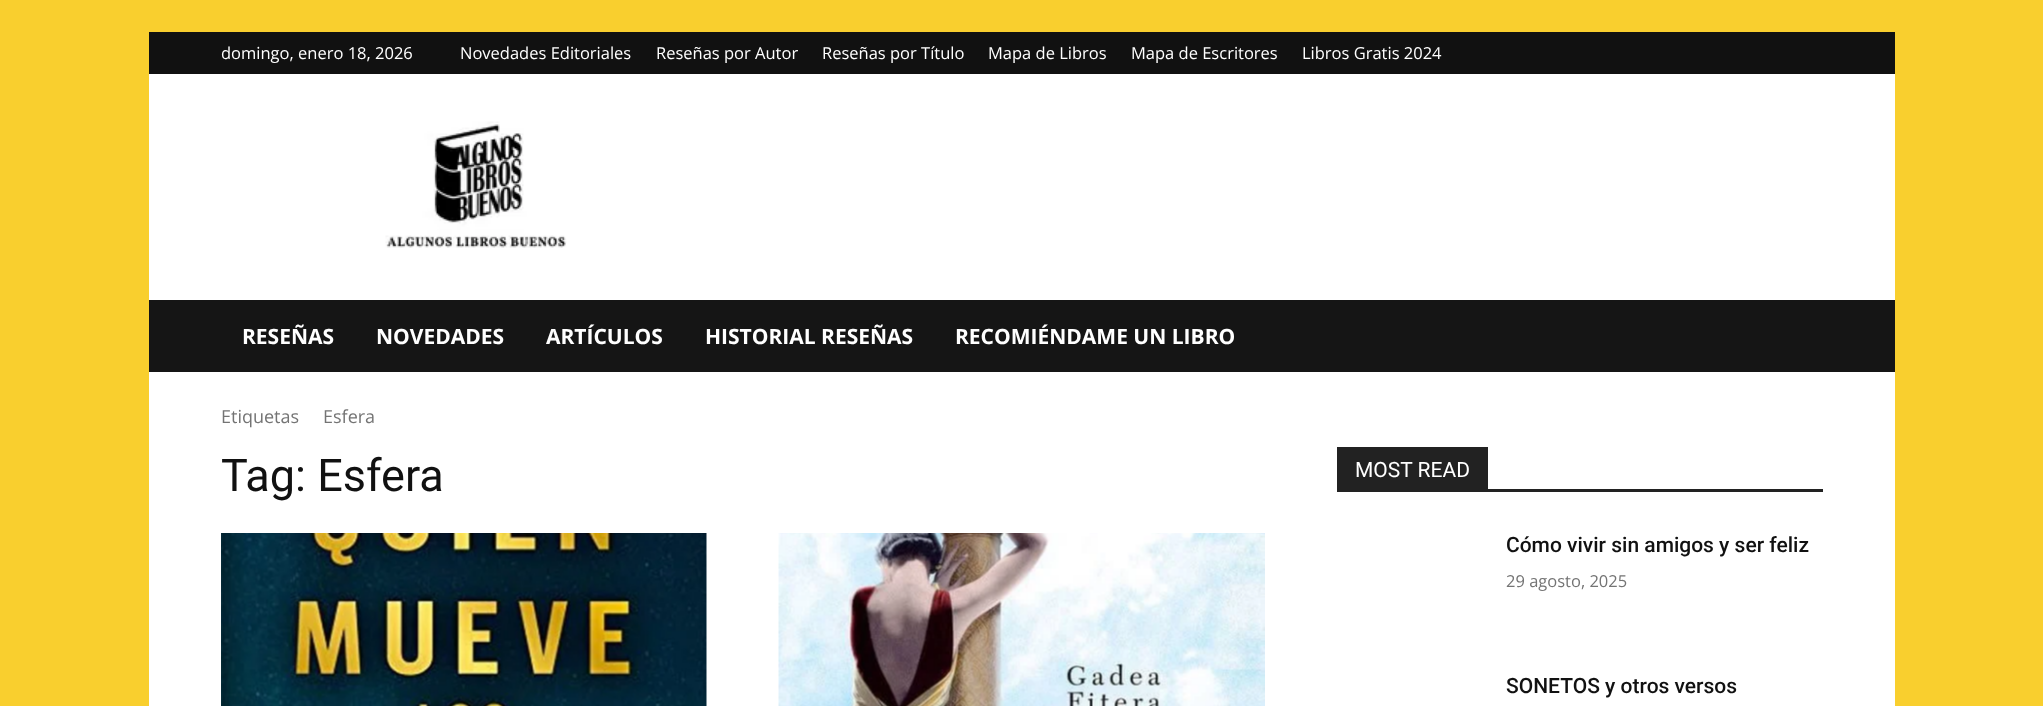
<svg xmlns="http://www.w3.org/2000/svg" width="2043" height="706">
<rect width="100%" height="100%" fill="#f9cf2e"/>
<rect x="149" y="32" width="1746" height="42" fill="#111"/>
<text x="221" y="59" style="font-family:Open Sans;font-size:16.5px;fill:#fff">domingo, enero 18, 2026</text>
<text x="460" y="59" style="font-family:Open Sans;font-size:16.5px;fill:#fff">Novedades Editoriales</text>
<text x="656" y="59" style="font-family:Open Sans;font-size:16.5px;fill:#fff">Reseñas por Autor</text>
<text x="822" y="59" style="font-family:Open Sans;font-size:16.5px;fill:#fff">Reseñas por Título</text>
<text x="988" y="59" style="font-family:Open Sans;font-size:16.5px;fill:#fff">Mapa de Libros</text>
<text x="1131" y="59" style="font-family:Open Sans;font-size:16.5px;fill:#fff">Mapa de Escritores</text>
<text x="1302" y="59" style="font-family:Open Sans;font-size:16.5px;fill:#fff">Libros Gratis 2024</text>
<rect x="149" y="74" width="1746" height="226" fill="#fff"/>
<image x="385" y="121" width="182" height="127" href="media/1.png"/>
<rect x="149" y="300" width="1746" height="72" fill="#151515"/>
<text x="242" y="344" style="font-family:Open Sans;font-size:21px;font-weight:bold;fill:#fff">RESEÑAS</text>
<text x="376" y="344" style="font-family:Open Sans;font-size:21px;font-weight:bold;fill:#fff">NOVEDADES</text>
<text x="546" y="344" style="font-family:Open Sans;font-size:21px;font-weight:bold;fill:#fff">ARTÍCULOS</text>
<text x="705" y="344" style="font-family:Open Sans;font-size:21px;font-weight:bold;fill:#fff">HISTORIAL RESEÑAS</text>
<text x="955" y="344" style="font-family:Open Sans;font-size:21px;font-weight:bold;fill:#fff">RECOMIÉNDAME UN LIBRO</text>
<rect x="149" y="372" width="1746" height="334" fill="#fff"/>
<text x="221" y="423" style="font-family:Open Sans;font-size:18px;fill:#747474">Etiquetas</text>
<text x="323" y="423" style="font-family:Open Sans;font-size:18px;fill:#747474">Esfera</text>
<text x="221" y="491" style="font-family:Roboto;font-size:45px;fill:#111">Tag: Esfera</text>
<image x="221" y="533" width="486" height="173" href="media/2.png"/>
<image x="778" y="533" width="487" height="173" href="media/3.png"/>
<rect x="1337" y="489" width="486" height="3" fill="#222"/>
<rect x="1337" y="447" width="151" height="42" fill="#222"/>
<text x="1355" y="477" style="font-family:Roboto;font-size:21px;fill:#fff">MOST READ</text>
<text x="1506" y="552" style="font-family:Roboto;font-size:21px;font-weight:500;fill:#111">Cómo vivir sin amigos y ser feliz</text>
<text x="1506" y="587" style="font-family:Open Sans;font-size:16.5px;fill:#747474">29 agosto, 2025</text>
<text x="1506" y="693" style="font-family:Roboto;font-size:21px;font-weight:500;fill:#111">SONETOS y otros versos</text>
</svg>
